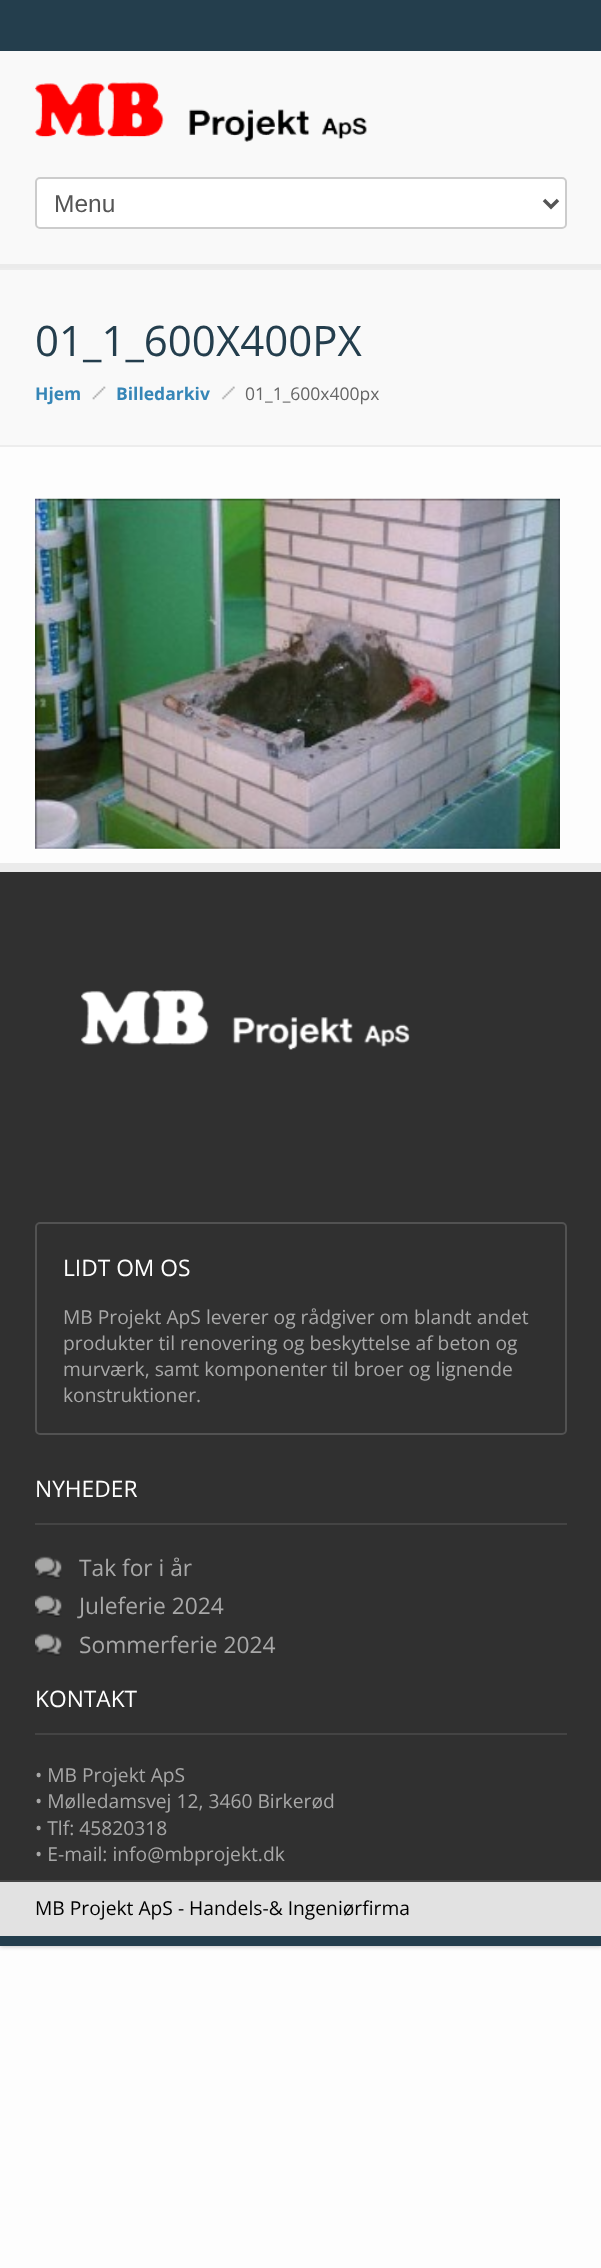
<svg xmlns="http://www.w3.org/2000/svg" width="601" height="2268">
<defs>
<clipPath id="clip1"><rect x="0" y="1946" width="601" height="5"/></clipPath>
</defs>
<rect width="100%" height="100%" fill="#fdfdfd"/>
<g clip-path="url(#clip1)">
<rect width="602" height="1946" fill="#b4b4b4" filter="blur(2.5px)"/>
</g>
<rect width="601" height="51" fill="#243e4d"/>
<rect y="51" width="601" height="213" fill="#f9f9f9"/>
<rect y="264" width="601" height="4" fill="#ebebeb"/>
<image x="35" y="82" width="332" height="60" href="media/1.png"/>
<rect x="36" y="178" width="530" height="50" rx="4" fill="#fff" stroke="#ccc" stroke-width="2"/>
<path d="M544 200l7 7l7-7" fill="none" stroke="#555" stroke-width="3.5"/>
<text x="54" y="212" style="font-family:Liberation Sans;font-size:24.5px;fill:#555">Menu</text>
<rect y="270" width="601" height="175" fill="#f9f9f9"/>
<rect y="268" width="601" height="2" fill="#ededed"/>
<rect y="445" width="601" height="2" fill="#ededed"/>
<text x="35" y="356" style="font-family:Open Sans;font-size:42px;fill:#243e4d">01_1_600X400PX</text>
<text x="35" y="400" style="font-family:Open Sans;font-size:17.5px;font-weight:bold;fill:#3686b7">Hjem</text>
<image x="92" y="386" width="14" height="14" href="media/2.png"/>
<text x="116" y="400" style="font-family:Open Sans;font-size:17.5px;font-weight:bold;fill:#3686b7">Billedarkiv</text>
<image x="221" y="386" width="14" height="14" href="media/3.png"/>
<text x="245" y="400" style="font-family:Open Sans;font-size:17.5px;fill:#666">01_1_600x400px</text>
<image x="35" y="498" width="525" height="351" href="media/4.png"/>
<rect y="872" width="601" height="1008" fill="#303030"/>
<rect y="863" width="601" height="9" fill="#ebebeb"/>
<image x="81" y="990" width="329" height="60" href="media/5.png"/>
<rect x="36" y="1223" width="530" height="211" rx="4" fill="none" stroke="#525252" stroke-width="2"/>
<text x="63" y="1276" style="font-family:Open Sans;font-size:22.75px;fill:#fff">LIDT OM OS</text>
<text x="63" y="1324" style="font-family:Open Sans;font-size:19.25px;fill:#a8a8a8">MB Projekt ApS leverer og rådgiver om blandt andet</text>
<text x="63" y="1350" style="font-family:Open Sans;font-size:19.25px;fill:#a8a8a8">produkter til renovering og beskyttelse af beton og</text>
<text x="63" y="1376" style="font-family:Open Sans;font-size:19.25px;fill:#a8a8a8">murværk, samt komponenter til broer og lignende</text>
<text x="63" y="1402" style="font-family:Open Sans;font-size:19.25px;fill:#a8a8a8">konstruktioner.</text>
<text x="35" y="1497" style="font-family:Open Sans;font-size:22.75px;fill:#fff">NYHEDER</text>
<rect x="35" y="1523" width="532" height="2" fill="#444"/>
<image x="35" y="1556" width="27" height="23" href="media/6.png"/>
<text x="79" y="1576" style="font-family:Open Sans;font-size:22.75px;fill:#a8a8a8">Tak for i år</text>
<image x="35" y="1595" width="27" height="22" href="media/7.png"/>
<text x="79" y="1614" style="font-family:Open Sans;font-size:22.75px;fill:#a8a8a8">Juleferie 2024</text>
<image x="35" y="1633" width="27" height="23" href="media/6.png"/>
<text x="79" y="1653" style="font-family:Open Sans;font-size:22.75px;fill:#a8a8a8">Sommerferie 2024</text>
<text x="35" y="1707" style="font-family:Open Sans;font-size:22.75px;fill:#fff">KONTAKT</text>
<rect x="35" y="1733" width="532" height="2" fill="#444"/>
<text x="35" y="1782" style="font-family:Open Sans;font-size:19.25px;fill:#a8a8a8">• MB Projekt ApS</text>
<text x="35" y="1808" style="font-family:Open Sans;font-size:19.25px;fill:#a8a8a8">• Mølledamsvej 12, 3460 Birkerød</text>
<text x="35" y="1835" style="font-family:Open Sans;font-size:19.25px;fill:#a8a8a8">• Tlf: 45820318</text>
<text x="35" y="1861" style="font-family:Open Sans;font-size:19.25px;fill:#a8a8a8">• E-mail: info@mbprojekt.dk</text>
<rect y="1882" width="601" height="54" fill="#e2e2e2"/>
<rect y="1880" width="601" height="2" fill="#444"/>
<rect y="1936" width="601" height="10" fill="#243e4d"/>
<text x="35" y="1915" style="font-family:Open Sans;font-size:19.25px;fill:#000">MB Projekt ApS - Handels-&amp; Ingeniørfirma</text>
</svg>
